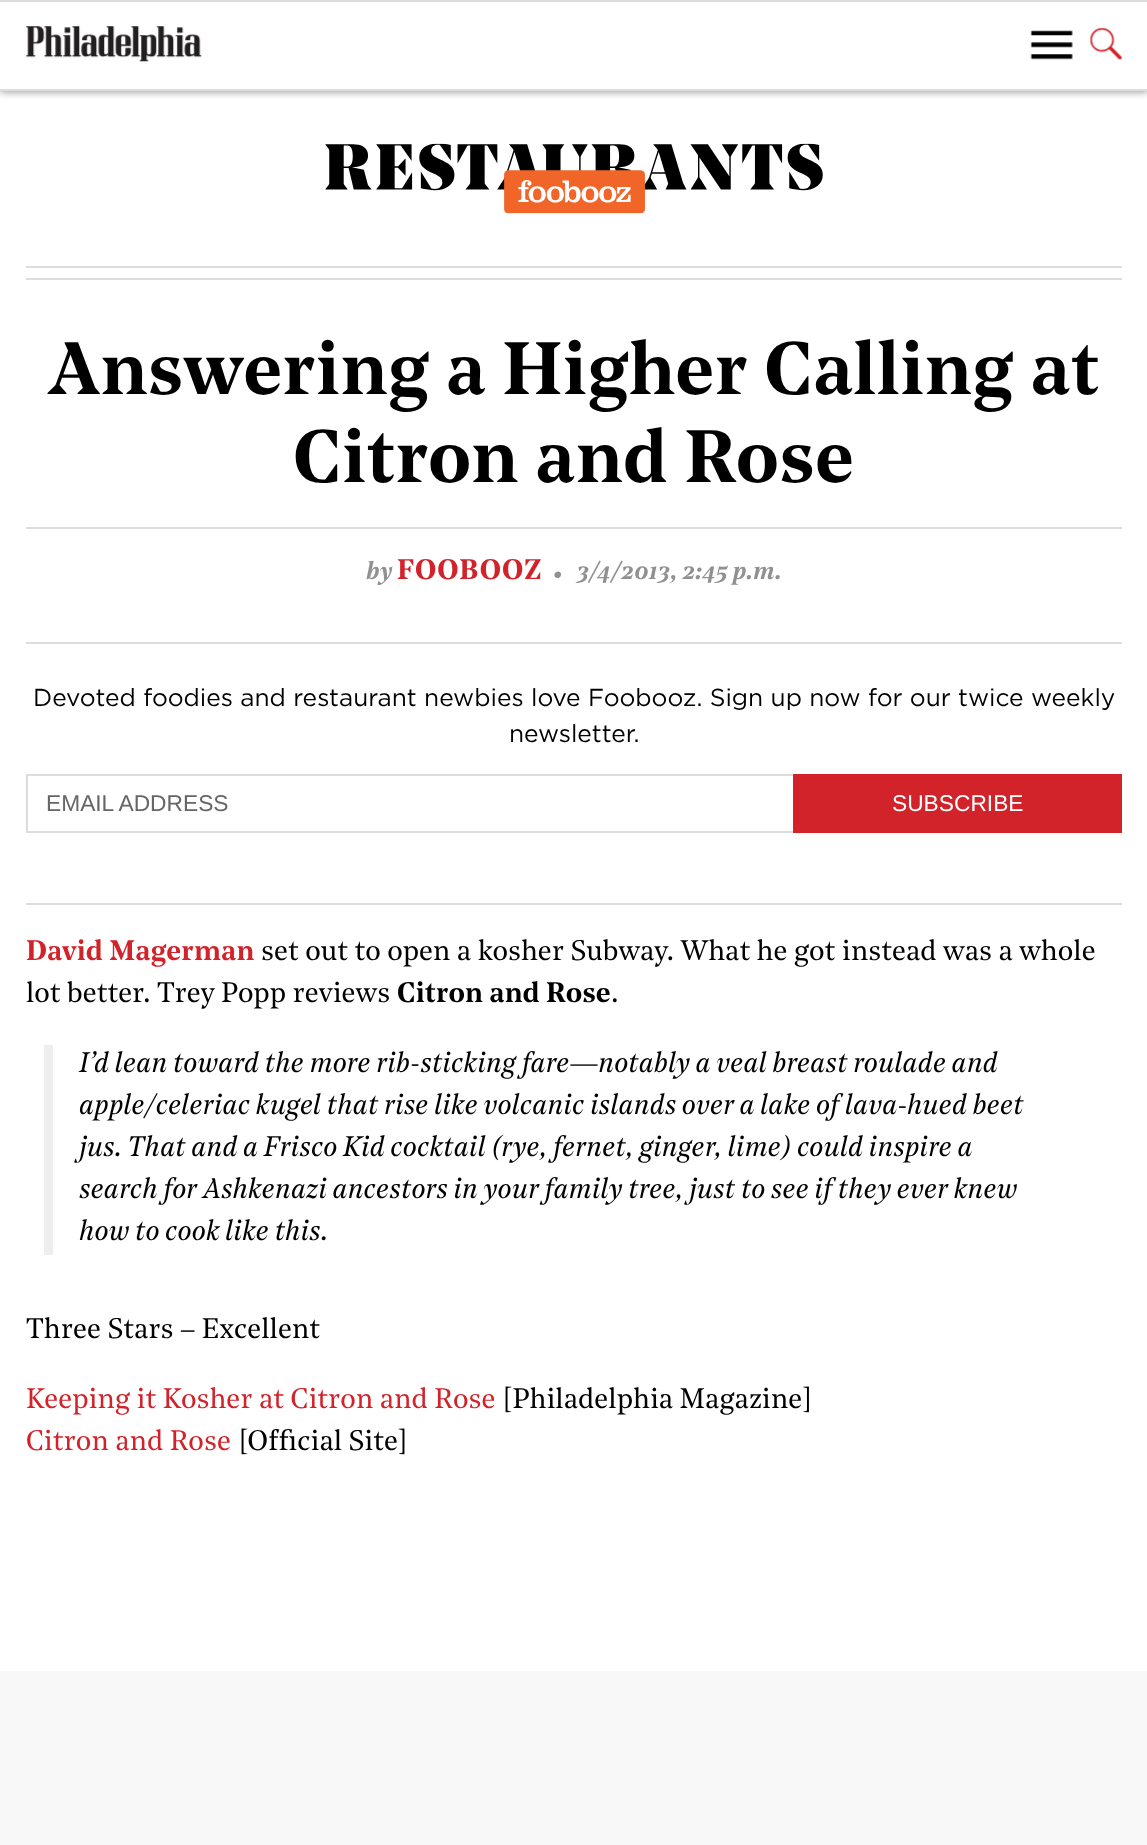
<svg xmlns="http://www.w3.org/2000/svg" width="1147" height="1845">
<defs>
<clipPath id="clip1"><rect x="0" y="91" width="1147" height="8"/></clipPath>
</defs>
<rect width="100%" height="100%" fill="#fff"/>
<g clip-path="url(#clip1)">
<rect width="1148" height="91" fill="#00000080" filter="blur(4.5px)"/>
</g>
<rect width="1147" height="2" fill="#ddd"/>
<rect y="89" width="1147" height="2" fill="#ddd"/>
<image x="26" y="26" width="176" height="36" href="media/1.png"/>
<image x="1030" y="30" width="43" height="30" href="media/2.png"/>
<image x="1090" y="28" width="32" height="32" href="media/3.png"/>
<image x="325" y="143" width="498" height="71" href="media/4.png"/>
<rect x="26" y="266" width="1096" height="2" fill="#ddd"/>
<rect x="26" y="278" width="1096" height="2" fill="#ddd"/>
<text x="48" y="394" style="font-family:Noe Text;font-size:73.5px;font-weight:600;fill:#000">Answering a Higher Calling at</text>
<text x="293" y="482" style="font-family:Noe Text;font-size:73.5px;font-weight:600;fill:#000">Citron and Rose</text>
<rect x="26" y="527" width="1096" height="2" fill="#ddd"/>
<rect x="26" y="642" width="1096" height="2" fill="#ddd"/>
<text x="366" y="579" style="font-family:Noe Text;font-size:24.5px;font-weight:600;font-style:italic;fill:#909090">by</text>
<text x="397" y="579" style="font-family:Noe Text;font-size:28px;font-weight:600;letter-spacing:1px;fill:#d2232a">FOOBOOZ</text>
<text x="552" y="586" style="font-family:Noe Text;font-size:38px;font-weight:600;font-style:italic;fill:#909090">·</text>
<text x="577" y="579" style="font-family:Noe Text;font-size:24.5px;font-weight:600;font-style:italic;fill:#909090">3/4/2013, 2:45 p.m.</text>
<rect x="26" y="903" width="1096" height="2" fill="#ddd"/>
<text x="33" y="706" style="font-family:Gotham;font-size:24.5px;fill:#000">Devoted foodies and restaurant newbies love Foobooz. Sign up now for our twice weekly</text>
<text x="509" y="742" style="font-family:Gotham;font-size:24.5px;fill:#000">newsletter.</text>
<rect x="27" y="775" width="1094" height="57" fill="none" stroke="#ddd" stroke-width="2"/>
<text x="46" y="811" style="font-family:Liberation Sans;font-size:22.75px;fill:#666">EMAIL ADDRESS</text>
<rect x="793" y="774" width="329" height="59" fill="#d2232a"/>
<text x="892" y="811" style="font-family:Liberation Sans;font-size:22.75px;fill:#fff">SUBSCRIBE</text>
<text x="26" y="960" style="font-family:Noe Text;font-size:28px;font-weight:600;fill:#d2232a">David Magerman</text>
<text x="261" y="960" style="font-family:Noe Text;font-size:28px;fill:#000">set out to open a kosher Subway. What he got instead was a whole</text>
<text x="26" y="1002" style="font-family:Noe Text;font-size:28px;fill:#000">lot better. Trey Popp reviews</text>
<text x="397" y="1002" style="font-family:Noe Text;font-size:28px;font-weight:600;fill:#000">Citron and Rose</text>
<text x="611" y="1002" style="font-family:Noe Text;font-size:28px;fill:#000">.</text>
<rect x="44" y="1045" width="9" height="210" fill="#eee"/>
<text x="79" y="1072" style="font-family:Noe Text;font-size:28px;font-style:italic;fill:#000">I’d lean toward the more rib-sticking fare—notably a veal breast roulade and</text>
<text x="79" y="1114" style="font-family:Noe Text;font-size:28px;font-style:italic;fill:#000">apple/celeriac kugel that rise like volcanic islands over a lake of lava-hued beet</text>
<text x="79" y="1156" style="font-family:Noe Text;font-size:28px;font-style:italic;fill:#000">jus. That and a Frisco Kid cocktail (rye, fernet, ginger, lime) could inspire a</text>
<text x="79" y="1198" style="font-family:Noe Text;font-size:28px;font-style:italic;fill:#000">search for Ashkenazi ancestors in your family tree, just to see if they ever knew</text>
<text x="79" y="1240" style="font-family:Noe Text;font-size:28px;font-style:italic;fill:#000">how to cook like this.</text>
<text x="26" y="1338" style="font-family:Noe Text;font-size:28px;fill:#000">Three Stars – Excellent</text>
<text x="26" y="1408" style="font-family:Noe Text;font-size:28px;fill:#d2232a">Keeping it Kosher at Citron and Rose</text>
<text x="502" y="1408" style="font-family:Noe Text;font-size:28px;fill:#000">[Philadelphia Magazine]</text>
<text x="26" y="1450" style="font-family:Noe Text;font-size:28px;fill:#d2232a">Citron and Rose</text>
<text x="238" y="1450" style="font-family:Noe Text;font-size:28px;fill:#000">[Official Site]</text>
<rect y="1671" width="1147" height="174" fill="#f8f8f8"/>
</svg>
